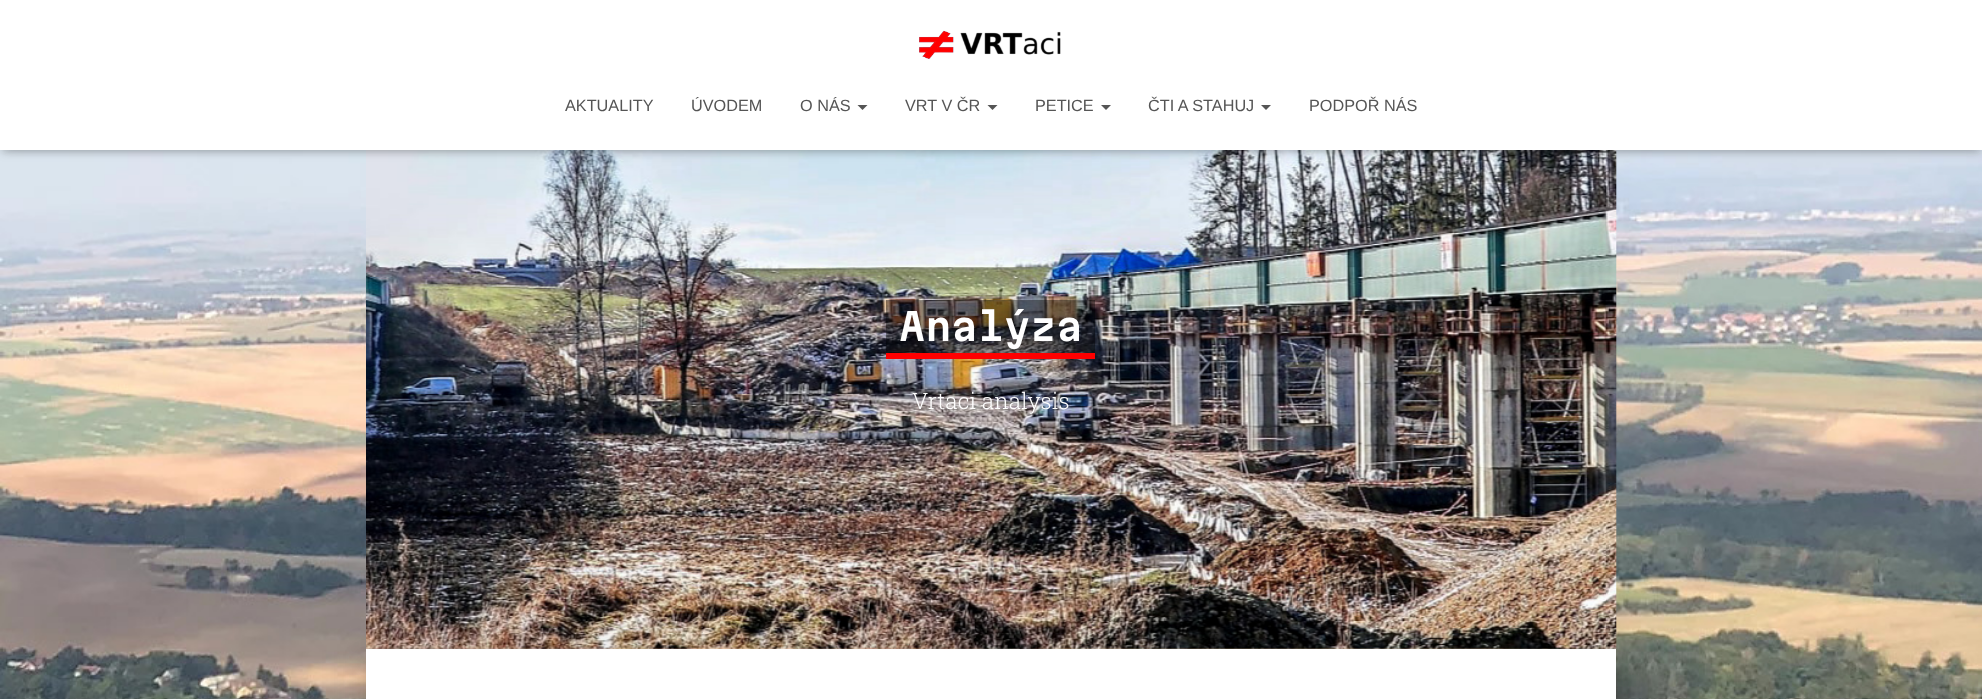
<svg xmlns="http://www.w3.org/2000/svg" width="1982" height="699">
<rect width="100%" height="100%" fill="#fff"/>
<image x="0" y="150" width="1982" height="549" href="media/1.png"/>
<image x="366" y="150" width="1251" height="499" href="media/3.png"/>
<rect x="3" y="8" width="1977" height="145" fill="#0000001a" filter="blur(3px)"/>
<rect y="1" width="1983" height="150" fill="#0000001f" filter="blur(6px)"/>
<rect x="8" y="9" width="1967" height="135" fill="#0000006b" filter="blur(6px)"/>
<rect width="1982" height="150" fill="#fff"/>
<image x="919" y="30" width="142" height="29" href="media/2.png"/>
<text x="565" y="111" style="font-family:Liberation Sans;font-size:16.25px;fill:#555">AKTUALITY</text>
<text x="691" y="111" style="font-family:Liberation Sans;font-size:16.25px;fill:#555">ÚVODEM</text>
<text x="800" y="111" style="font-family:Liberation Sans;font-size:16.25px;fill:#555">O NÁS</text>
<path d="M857.5 105h10l-5 5z" fill="#555"/>
<text x="905" y="111" style="font-family:Liberation Sans;font-size:16.25px;fill:#555">VRT V ČR</text>
<path d="M987.5 105h10l-5 5z" fill="#555"/>
<text x="1035" y="111" style="font-family:Liberation Sans;font-size:16.25px;fill:#555">PETICE</text>
<path d="M1101 105h10l-5 5z" fill="#555"/>
<text x="1148" y="111" style="font-family:Liberation Sans;font-size:16.25px;fill:#555">ČTI A STAHUJ</text>
<path d="M1261 105h10l-5 5z" fill="#555"/>
<text x="1309" y="111" style="font-family:Liberation Sans;font-size:16.25px;fill:#555">PODPOŘ NÁS</text>
<rect x="886" y="300" width="209" height="53" fill="#00000066"/>
<rect x="886" y="353" width="209" height="6" fill="#f00"/>
<text x="899" y="341" style="font-family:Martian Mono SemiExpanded;font-size:37.5px;font-weight:600;fill:#fff">Analýza</text>
<text x="912" y="409" style="font-family:Roboto Slab;font-size:22.5px;font-weight:300;fill:#fff">Vrtaci analysis</text>
<rect x="373" y="665" width="1237" height="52" fill="#00000033" filter="blur(6px)"/>
<rect x="360" y="650" width="1263" height="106" fill="#0000001f" filter="blur(19px)"/>
<rect x="364" y="666" width="1255" height="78" fill="#00000024" filter="blur(15px)"/>
<rect x="366" y="649" width="1250" height="50" fill="#fff"/>
</svg>
